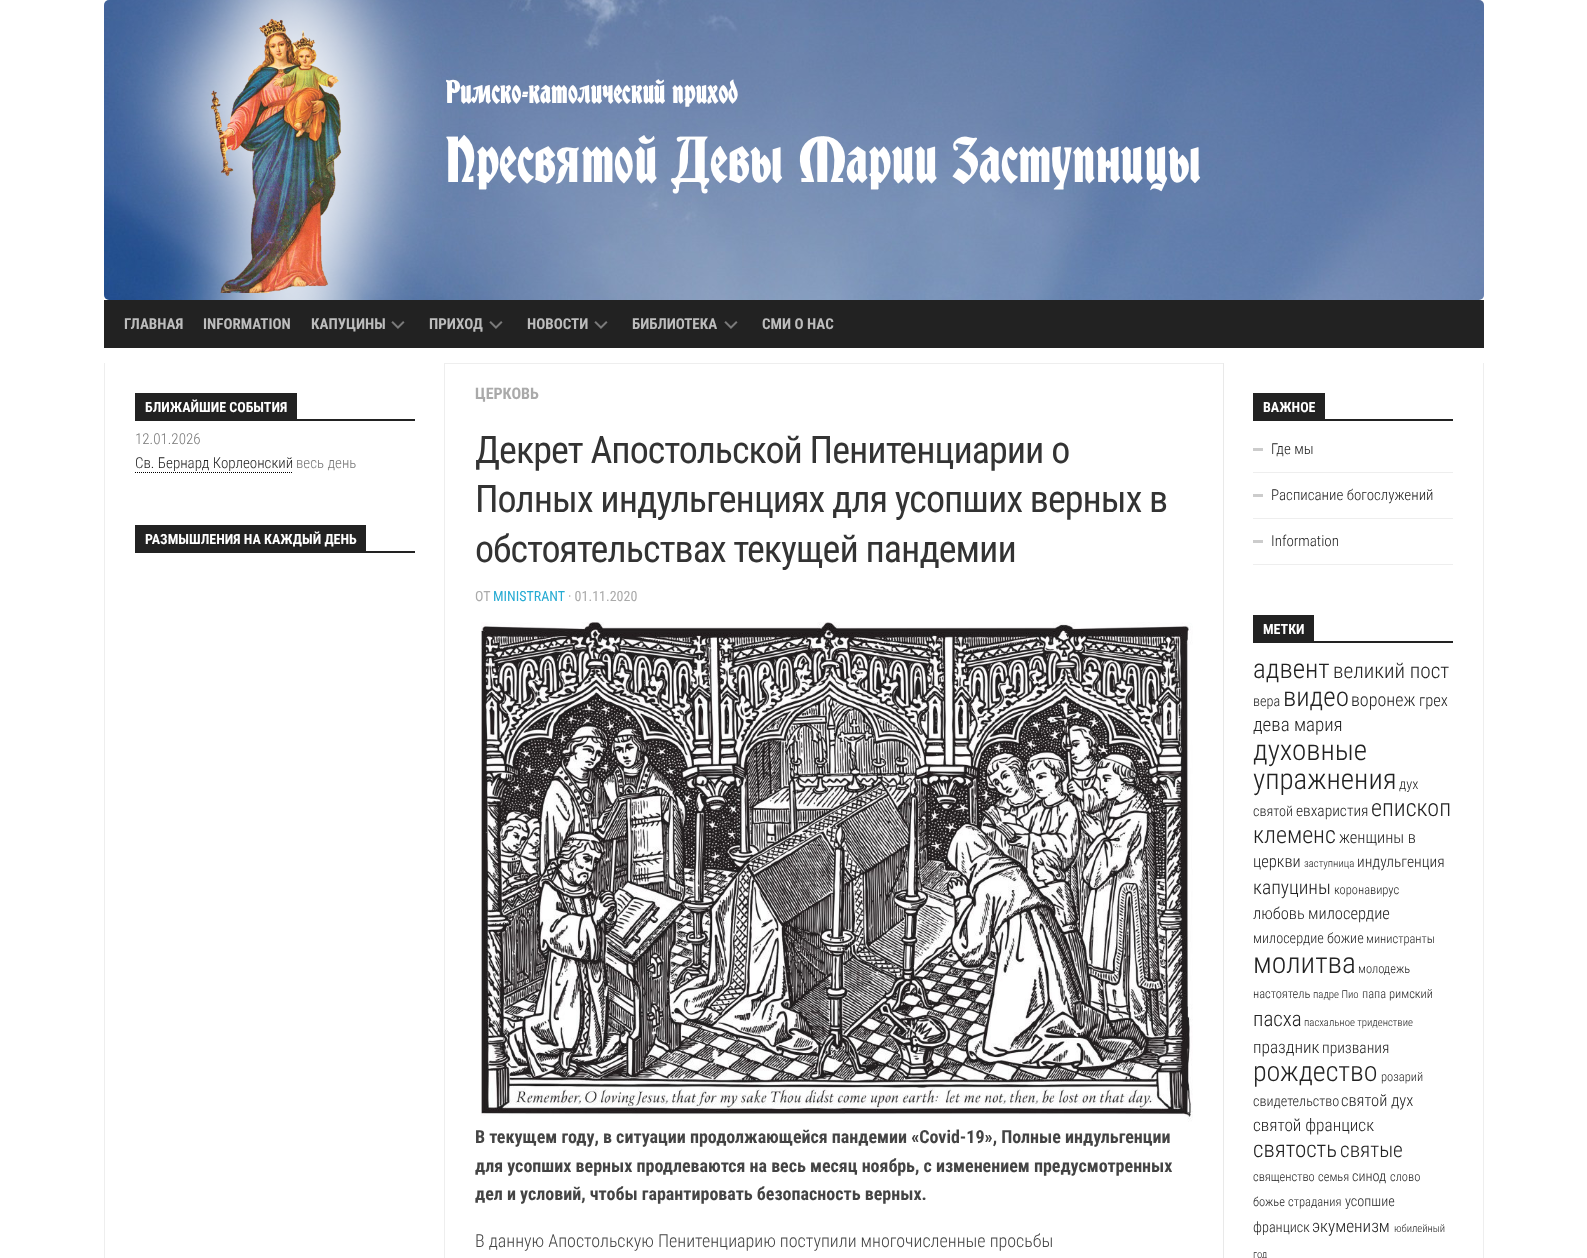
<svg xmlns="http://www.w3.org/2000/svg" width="1587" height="1258">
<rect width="100%" height="100%" fill="#fff"/>
<image x="104" y="0" width="1380" height="300" href="media/1.png"/>
<rect x="104" y="300" width="1380" height="48" fill="#222"/>
<text x="124" y="329" style="font-family:Roboto Condensed;font-size:15px;font-weight:bold;fill:#bdbdbd">ГЛАВНАЯ</text>
<text x="203" y="329" style="font-family:Roboto Condensed;font-size:15px;font-weight:bold;fill:#bdbdbd">INFORMATION</text>
<text x="311" y="329" style="font-family:Roboto Condensed;font-size:15px;font-weight:bold;fill:#bdbdbd">КАПУЦИНЫ</text>
<image x="391" y="321" width="14" height="8" href="media/2.png"/>
<text x="429" y="329" style="font-family:Roboto Condensed;font-size:15px;font-weight:bold;fill:#bdbdbd">ПРИХОД</text>
<image x="489" y="321" width="14" height="8" href="media/2.png"/>
<text x="527" y="329" style="font-family:Roboto Condensed;font-size:15px;font-weight:bold;fill:#bdbdbd">НОВОСТИ</text>
<image x="594" y="321" width="14" height="8" href="media/2.png"/>
<text x="632" y="329" style="font-family:Roboto Condensed;font-size:15px;font-weight:bold;fill:#bdbdbd">БИБЛИОТЕКА</text>
<image x="724" y="321" width="14" height="8" href="media/2.png"/>
<text x="762" y="329" style="font-family:Roboto Condensed;font-size:15px;font-weight:bold;fill:#bdbdbd">СМИ О НАС</text>
<rect x="1223" y="363" width="1" height="895" fill="#e9e9e9"/>
<rect x="1483" y="363" width="1" height="895" fill="#eee"/>
<rect x="104" y="363" width="1" height="895" fill="#eee"/>
<rect x="444" y="363" width="1" height="895" fill="#eee"/>
<rect x="135" y="419" width="280" height="2" fill="#222"/>
<rect x="135" y="393" width="162" height="26" fill="#222"/>
<text x="145" y="412" style="font-family:Roboto Condensed;font-size:14px;font-weight:bold;fill:#fff">БЛИЖАЙШИЕ СОБЫТИЯ</text>
<text x="135" y="444" style="font-family:Roboto Condensed;font-size:15px;font-weight:300;fill:#777">12.01.2026</text>
<text x="135" y="468" style="font-family:Roboto Condensed;font-size:15px;font-weight:300;fill:#222">Cв. Бернард Корлеонский</text>
<path d="M135 472.5h158" fill="none" stroke="#000" stroke-dasharray="1 1"/>
<text x="296" y="468" style="font-family:Roboto Condensed;font-size:15px;font-weight:300;fill:#777">весь день</text>
<rect x="135" y="551" width="280" height="2" fill="#222"/>
<rect x="135" y="525" width="231" height="26" fill="#222"/>
<text x="145" y="544" style="font-family:Roboto Condensed;font-size:14px;font-weight:bold;fill:#fff">РАЗМЫШЛЕНИЯ НА КАЖДЫЙ ДЕНЬ</text>
<rect x="445" y="363" width="778" height="1" fill="#eee"/>
<text x="475" y="399" style="font-family:Roboto Condensed;font-size:16px;font-weight:bold;fill:#aaa">ЦЕРКОВЬ</text>
<text x="475" y="463" style="font-family:Roboto Condensed;font-size:38px;letter-spacing:-1px;fill:#333">Декрет Апостольской Пенитенциарии о</text>
<text x="475" y="512" style="font-family:Roboto Condensed;font-size:38px;letter-spacing:-1px;fill:#333">Полных индульгенциях для усопших верных в</text>
<text x="475" y="562" style="font-family:Roboto Condensed;font-size:38px;letter-spacing:-1px;fill:#333">обстоятельствах текущей пандемии</text>
<text x="475" y="601" style="font-family:Roboto Condensed;font-size:14px;fill:#aaa">ОТ</text>
<text x="493" y="601" style="font-family:Roboto Condensed;font-size:14px;fill:#26abd3">MINISTRANT</text>
<text x="568" y="601" style="font-family:Roboto Condensed;font-size:14px;fill:#aaa">· 01.11.2020</text>
<image x="481" y="622" width="712" height="500" href="media/3.png"/>
<text x="475" y="1143" style="font-family:Roboto Condensed;font-size:18px;font-weight:bold;fill:#444">В текущем году, в ситуации продолжающейся пандемии «Covid-19», Полные индульгенции</text>
<text x="475" y="1172" style="font-family:Roboto Condensed;font-size:18px;font-weight:bold;fill:#444">для усопших верных продлеваются на весь месяц ноябрь, с изменением предусмотренных</text>
<text x="475" y="1200" style="font-family:Roboto Condensed;font-size:18px;font-weight:bold;fill:#444">дел и условий, чтобы гарантировать безопасность верных.</text>
<text x="475" y="1247" style="font-family:Roboto Condensed;font-size:18px;font-weight:300;fill:#444">В данную Апостольскую Пенитенциарию поступили многочисленные просьбы</text>
<rect x="1253" y="419" width="200" height="2" fill="#222"/>
<rect x="1253" y="393" width="72" height="26" fill="#222"/>
<text x="1263" y="412" style="font-family:Roboto Condensed;font-size:14px;font-weight:bold;fill:#fff">ВАЖНОЕ</text>
<rect x="1253" y="472" width="200" height="1" fill="#eee"/>
<rect x="1253" y="448" width="10" height="3" fill="#ccc"/>
<text x="1271" y="454" style="font-family:Roboto Condensed;font-size:15px;font-weight:300;fill:#222">Где мы</text>
<rect x="1253" y="518" width="200" height="1" fill="#eee"/>
<rect x="1253" y="494" width="10" height="3" fill="#ccc"/>
<text x="1271" y="500" style="font-family:Roboto Condensed;font-size:15px;font-weight:300;fill:#222">Расписание богослужений</text>
<rect x="1253" y="564" width="200" height="1" fill="#eee"/>
<rect x="1253" y="540" width="10" height="3" fill="#ccc"/>
<text x="1271" y="546" style="font-family:Roboto Condensed;font-size:15px;font-weight:300;fill:#222">Information</text>
<rect x="1253" y="641" width="200" height="2" fill="#222"/>
<rect x="1253" y="615" width="61" height="26" fill="#222"/>
<text x="1263" y="634" style="font-family:Roboto Condensed;font-size:14px;font-weight:bold;fill:#fff">МЕТКИ</text>
<text x="1253" y="678" style="font-family:Roboto Condensed;font-size:27px;font-weight:300;fill:#222">адвент</text>
<text x="1333" y="678" style="font-family:Roboto Condensed;font-size:21.25px;font-weight:300;fill:#222">великий пост</text>
<text x="1253" y="706" style="font-family:Roboto Condensed;font-size:14.25px;font-weight:300;fill:#222">вера</text>
<text x="1283" y="706" style="font-family:Roboto Condensed;font-size:27px;font-weight:300;fill:#222">видео</text>
<text x="1351" y="706" style="font-family:Roboto Condensed;font-size:18px;font-weight:300;fill:#222">воронеж</text>
<text x="1419" y="706" style="font-family:Roboto Condensed;font-size:16.5px;font-weight:300;fill:#222">грех</text>
<text x="1253" y="731" style="font-family:Roboto Condensed;font-size:19px;font-weight:300;fill:#222">дева мария</text>
<text x="1253" y="760" style="font-family:Roboto Condensed;font-size:29px;font-weight:300;fill:#222">духовные</text>
<text x="1253" y="789" style="font-family:Roboto Condensed;font-size:29px;font-weight:300;fill:#222">упражнения</text>
<text x="1399" y="789" style="font-family:Roboto Condensed;font-size:14.25px;font-weight:300;fill:#222">дух</text>
<text x="1253" y="816" style="font-family:Roboto Condensed;font-size:14.25px;font-weight:300;fill:#222">святой</text>
<text x="1296" y="816" style="font-family:Roboto Condensed;font-size:15.5px;font-weight:300;fill:#222">евхаристия</text>
<text x="1371" y="816" style="font-family:Roboto Condensed;font-size:24px;font-weight:300;fill:#222">епископ</text>
<text x="1253" y="843" style="font-family:Roboto Condensed;font-size:24px;font-weight:300;fill:#222">клеменс</text>
<text x="1339" y="843" style="font-family:Roboto Condensed;font-size:16.5px;font-weight:300;fill:#222">женщины в</text>
<text x="1253" y="867" style="font-family:Roboto Condensed;font-size:16.5px;font-weight:300;fill:#222">церкви</text>
<text x="1304" y="867" style="font-family:Roboto Condensed;font-size:10.75px;font-weight:300;fill:#222">заступница</text>
<text x="1357" y="867" style="font-family:Roboto Condensed;font-size:15.5px;font-weight:300;fill:#222">индульгенция</text>
<text x="1253" y="894" style="font-family:Roboto Condensed;font-size:19.5px;font-weight:300;fill:#222">капуцины</text>
<text x="1334" y="894" style="font-family:Roboto Condensed;font-size:12.5px;font-weight:300;fill:#222">коронавирус</text>
<text x="1253" y="919" style="font-family:Roboto Condensed;font-size:16.5px;font-weight:300;fill:#222">любовь</text>
<text x="1308" y="919" style="font-family:Roboto Condensed;font-size:16.5px;font-weight:300;fill:#222">милосердие</text>
<text x="1253" y="943" style="font-family:Roboto Condensed;font-size:14.25px;font-weight:300;fill:#222">милосердие божие</text>
<text x="1366" y="943" style="font-family:Roboto Condensed;font-size:12.5px;font-weight:300;fill:#222">министранты</text>
<text x="1253" y="973" style="font-family:Roboto Condensed;font-size:29.5px;font-weight:300;fill:#222">молитва</text>
<text x="1358" y="973" style="font-family:Roboto Condensed;font-size:12.5px;font-weight:300;fill:#222">молодежь</text>
<text x="1253" y="998" style="font-family:Roboto Condensed;font-size:12.5px;font-weight:300;fill:#222">настоятель</text>
<text x="1313" y="998" style="font-family:Roboto Condensed;font-size:10.75px;font-weight:300;fill:#222">падре Пио</text>
<text x="1362" y="998" style="font-family:Roboto Condensed;font-size:12.5px;font-weight:300;fill:#222">папа римский</text>
<text x="1253" y="1026" style="font-family:Roboto Condensed;font-size:21px;font-weight:300;fill:#222">пасха</text>
<text x="1304" y="1026" style="font-family:Roboto Condensed;font-size:10.75px;font-weight:300;fill:#222">пасхальное триденствие</text>
<text x="1253" y="1053" style="font-family:Roboto Condensed;font-size:17.25px;font-weight:300;fill:#222">праздник</text>
<text x="1322" y="1053" style="font-family:Roboto Condensed;font-size:15.5px;font-weight:300;fill:#222">призвания</text>
<text x="1253" y="1081" style="font-family:Roboto Condensed;font-size:28px;font-weight:300;fill:#222">рождество</text>
<text x="1381" y="1081" style="font-family:Roboto Condensed;font-size:12.5px;font-weight:300;fill:#222">розарий</text>
<text x="1253" y="1106" style="font-family:Roboto Condensed;font-size:14.25px;font-weight:300;fill:#222">свидетельство</text>
<text x="1341" y="1106" style="font-family:Roboto Condensed;font-size:16.5px;font-weight:300;fill:#222">святой дух</text>
<text x="1253" y="1131" style="font-family:Roboto Condensed;font-size:17.25px;font-weight:300;fill:#222">святой франциск</text>
<text x="1253" y="1157" style="font-family:Roboto Condensed;font-size:23px;font-weight:300;fill:#222">святость</text>
<text x="1340" y="1157" style="font-family:Roboto Condensed;font-size:21.25px;font-weight:300;fill:#222">святые</text>
<text x="1253" y="1181" style="font-family:Roboto Condensed;font-size:12.5px;font-weight:300;fill:#222">священство</text>
<text x="1318" y="1181" style="font-family:Roboto Condensed;font-size:12.5px;font-weight:300;fill:#222">семья</text>
<text x="1352" y="1181" style="font-family:Roboto Condensed;font-size:14.25px;font-weight:300;fill:#222">синод</text>
<text x="1390" y="1181" style="font-family:Roboto Condensed;font-size:12.5px;font-weight:300;fill:#222">слово</text>
<text x="1253" y="1206" style="font-family:Roboto Condensed;font-size:12.5px;font-weight:300;fill:#222">божье</text>
<text x="1288" y="1206" style="font-family:Roboto Condensed;font-size:12.5px;font-weight:300;fill:#222">страдания</text>
<text x="1345" y="1206" style="font-family:Roboto Condensed;font-size:14.25px;font-weight:300;fill:#222">усопшие</text>
<text x="1253" y="1232" style="font-family:Roboto Condensed;font-size:14.25px;font-weight:300;fill:#222">франциск</text>
<text x="1312" y="1232" style="font-family:Roboto Condensed;font-size:17.25px;font-weight:300;fill:#222">экуменизм</text>
<text x="1394" y="1232" style="font-family:Roboto Condensed;font-size:10.75px;font-weight:300;fill:#222">юбилейный</text>
<text x="1253" y="1258" style="font-family:Roboto Condensed;font-size:10.75px;font-weight:300;fill:#222">год</text>
</svg>
